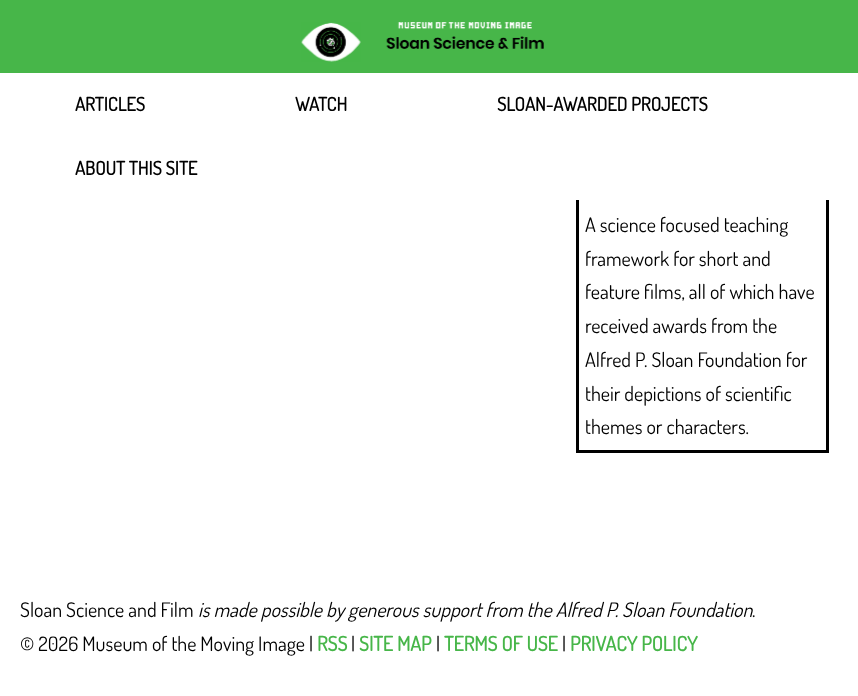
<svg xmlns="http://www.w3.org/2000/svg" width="858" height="696">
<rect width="100%" height="100%" fill="#fff"/>
<rect x="577.5" y="30.5" width="250" height="421" fill="none" stroke="#000" stroke-width="3"/>
<rect width="858" height="73" fill="#47b649"/>
<image x="301" y="22" width="60" height="40" href="media/1.png"/>
<image x="386" y="22" width="158" height="27" href="media/2.png"/>
<rect x="576" y="73" width="253" height="127" fill="#fff"/>
<text x="75" y="111" style="font-family:Dosis;font-size:18.75px;font-weight:bold;fill:#000">ARTICLES</text>
<text x="295" y="111" style="font-family:Dosis;font-size:18.75px;font-weight:bold;fill:#000">WATCH</text>
<text x="497" y="111" style="font-family:Dosis;font-size:18.75px;font-weight:bold;fill:#000">SLOAN-AWARDED PROJECTS</text>
<text x="75" y="175" style="font-family:Dosis;font-size:18.75px;font-weight:bold;fill:#000">ABOUT THIS SITE</text>
<text x="585" y="232" style="font-family:Dosis;font-size:20px;fill:#000">A science focused teaching</text>
<text x="585" y="266" style="font-family:Dosis;font-size:20px;fill:#000">framework for short and</text>
<text x="585" y="299" style="font-family:Dosis;font-size:20px;fill:#000">feature films, all of which have</text>
<text x="585" y="333" style="font-family:Dosis;font-size:20px;fill:#000">received awards from the</text>
<text x="585" y="367" style="font-family:Dosis;font-size:20px;fill:#000">Alfred P. Sloan Foundation for</text>
<text x="585" y="401" style="font-family:Dosis;font-size:20px;fill:#000">their depictions of scientific</text>
<text x="585" y="434" style="font-family:Dosis;font-size:20px;fill:#000">themes or characters.</text>
<text x="20" y="617" style="font-family:Dosis;font-size:20px;fill:#000">Sloan Science and Film</text>
<text x="198" y="617" style="font-family:Dosis;font-size:20px;font-style:italic;fill:#000">is made possible by generous support from the Alfred P. Sloan Foundation</text>
<text x="752" y="617" style="font-family:Dosis;font-size:20px;fill:#000">.</text>
<text x="20" y="651" style="font-family:Dosis;font-size:20px;fill:#000">© 2026 Museum of the Moving Image |</text>
<text x="317" y="651" style="font-family:Dosis;font-size:20px;font-weight:bold;fill:#47b649">RSS</text>
<text x="351" y="651" style="font-family:Dosis;font-size:20px;fill:#000">|</text>
<text x="359" y="651" style="font-family:Dosis;font-size:20px;font-weight:bold;fill:#47b649">SITE MAP</text>
<text x="436" y="651" style="font-family:Dosis;font-size:20px;fill:#000">|</text>
<text x="444" y="651" style="font-family:Dosis;font-size:20px;font-weight:bold;fill:#47b649">TERMS OF USE</text>
<text x="562" y="651" style="font-family:Dosis;font-size:20px;fill:#000">|</text>
<text x="570" y="651" style="font-family:Dosis;font-size:20px;font-weight:bold;fill:#47b649">PRIVACY POLICY</text>
</svg>
